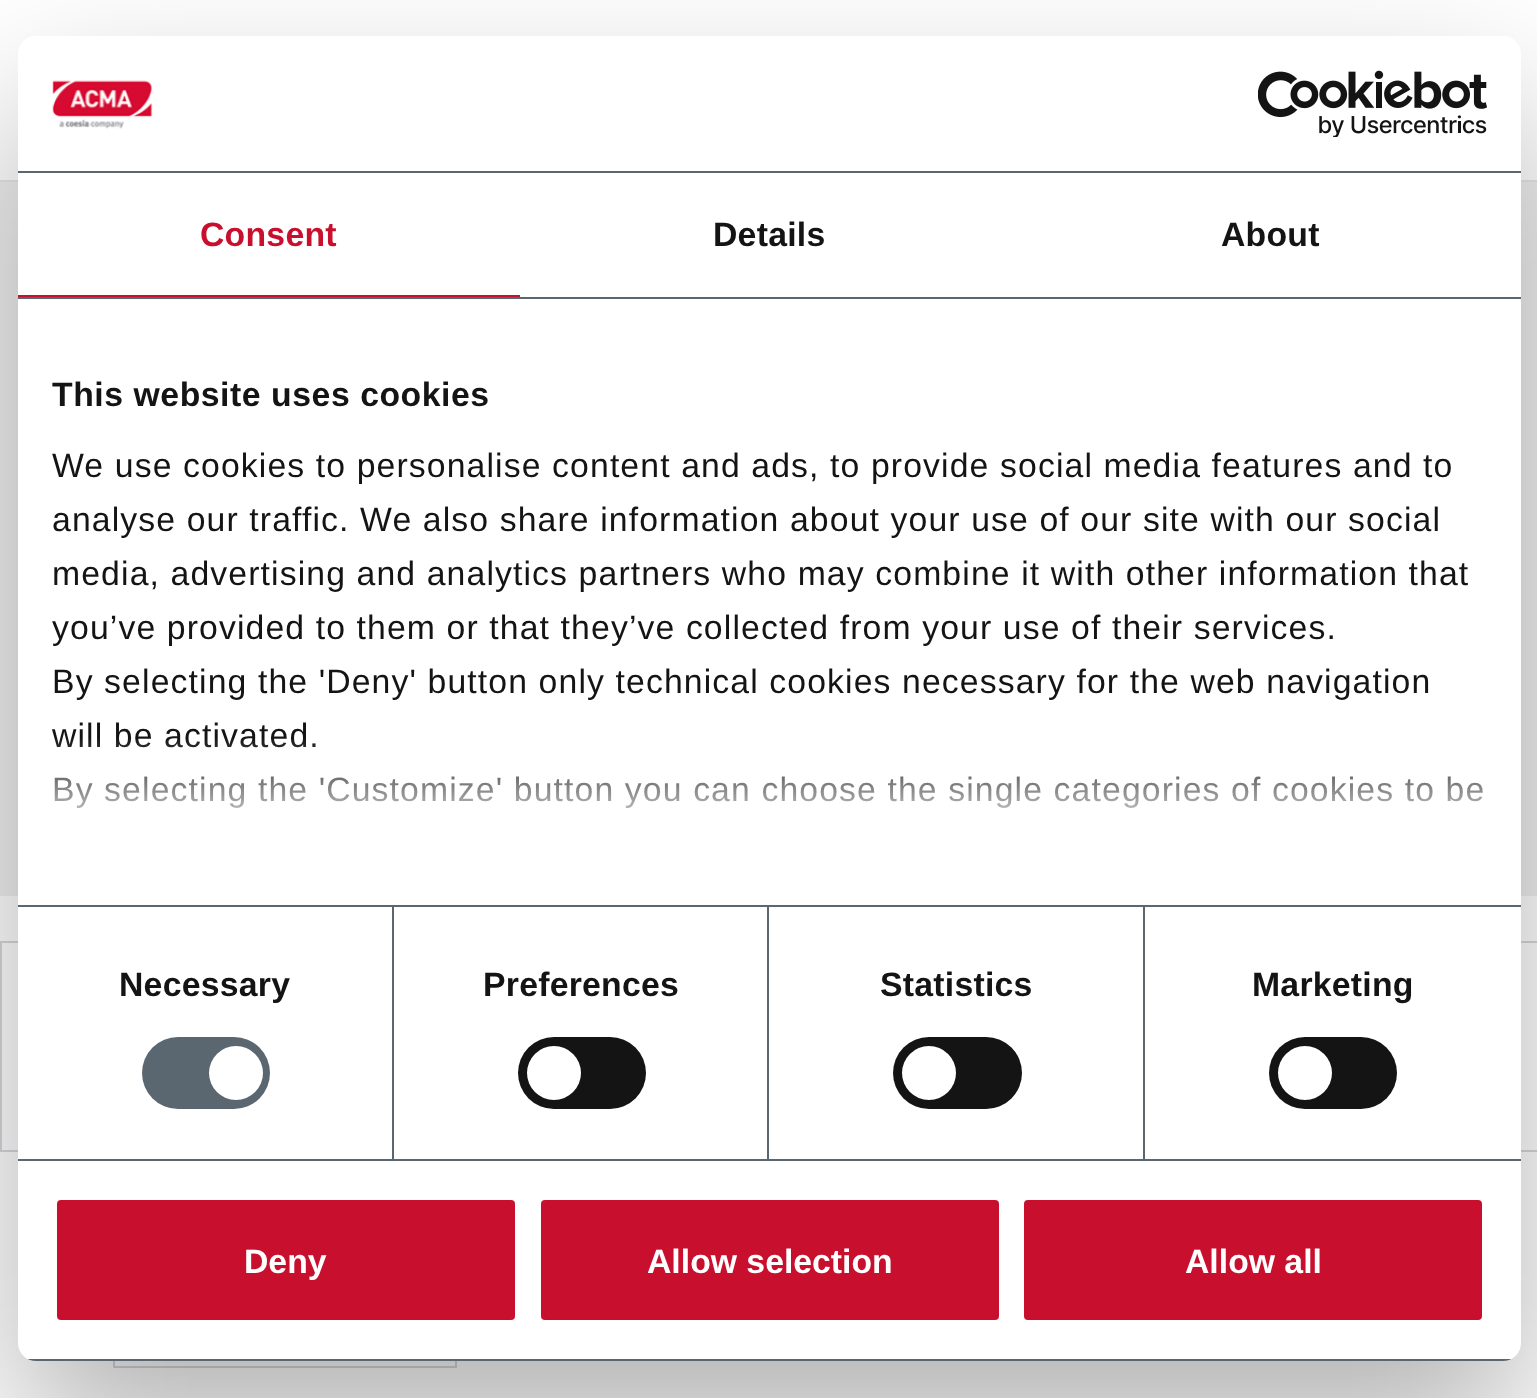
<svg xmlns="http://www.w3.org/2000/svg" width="1537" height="1398">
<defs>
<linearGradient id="g1" gradientUnits="userSpaceOnUse" x1="755" y1="905" x2="755" y2="737"><stop offset="0" stop-color="#fff"/><stop offset="0.5" stop-color="#fff" stop-opacity="0.8"/><stop offset="1" stop-color="#fff" stop-opacity="0"/></linearGradient>
<clipPath id="clip1"><rect x="18" y="36" width="1503" height="1325" rx="18"/></clipPath>
</defs>
<rect width="100%" height="100%" fill="#fff"/>
<rect y="180" width="1537" height="2" fill="#e6e7e7"/>
<rect y="182" width="1537" height="714" fill="#f0f0f0"/>
<rect x="1" y="942" width="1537" height="209" fill="none" stroke="#d6d9dc" stroke-width="2"/>
<rect x="114" y="1266" width="342" height="101" fill="none" stroke="#d6d9dc" stroke-width="2"/>
<rect x="18" y="108" width="1503" height="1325" rx="18" fill="#0000004d" filter="blur(76.5px)"/>
<rect x="18" y="36" width="1503" height="1325" rx="18" fill="#fff"/>
<rect x="18" y="171" width="1503" height="2" fill="#5b6770"/>
<image x="52" y="80" width="101" height="49" href="media/1.png"/>
<image x="1258" y="70" width="229" height="67" href="media/2.png"/>
<rect x="18" y="297" width="1503" height="2" fill="#5b6770"/>
<rect x="18" y="295" width="502" height="2" fill="#c8102e"/>
<text x="200" y="246" style="font-family:Liberation Sans;font-size:33.75px;font-weight:bold;letter-spacing:0.25px;fill:#c8102e">Consent</text>
<text x="713" y="246" style="font-family:Liberation Sans;font-size:33.75px;font-weight:bold;letter-spacing:0.25px;fill:#141414">Details</text>
<text x="1221" y="246" style="font-family:Liberation Sans;font-size:33.75px;font-weight:bold;letter-spacing:0.25px;fill:#141414">About</text>
<rect x="18" y="905" width="1503" height="2" fill="#5b6770"/>
<text x="52" y="406" style="font-family:Liberation Sans;font-size:33.75px;font-weight:bold;letter-spacing:0.55px;fill:#141414">This website uses cookies</text>
<text x="52" y="477" style="font-family:Liberation Sans;font-size:33.75px;letter-spacing:1.12px;fill:#141414">We use cookies to personalise content and ads, to provide social media features and to</text>
<text x="52" y="531" style="font-family:Liberation Sans;font-size:33.75px;letter-spacing:1.12px;fill:#141414">analyse our traffic. We also share information about your use of our site with our social</text>
<text x="52" y="585" style="font-family:Liberation Sans;font-size:33.75px;letter-spacing:1.12px;fill:#141414">media, advertising and analytics partners who may combine it with other information that</text>
<text x="52" y="639" style="font-family:Liberation Sans;font-size:33.75px;letter-spacing:1.12px;fill:#141414">you’ve provided to them or that they’ve collected from your use of their services.</text>
<text x="52" y="693" style="font-family:Liberation Sans;font-size:33.75px;letter-spacing:1.12px;fill:#141414">By selecting the 'Deny' button only technical cookies necessary for the web navigation</text>
<text x="52" y="747" style="font-family:Liberation Sans;font-size:33.75px;letter-spacing:1.12px;fill:#141414">will be activated.</text>
<text x="52" y="801" style="font-family:Liberation Sans;font-size:33.75px;letter-spacing:1.12px;fill:#141414">By selecting the 'Customize' button you can choose the single categories of cookies to be</text>
<rect x="54" y="739" width="1429" height="69" fill="url(#g1)"/>
<rect x="18" y="1159" width="1503" height="2" fill="#5b6770"/>
<rect x="392" y="907" width="2" height="252" fill="#5b6770"/>
<text x="119" y="996" style="font-family:Liberation Sans;font-size:33.75px;font-weight:bold;letter-spacing:0.25px;fill:#141414">Necessary</text>
<rect x="142" y="1037" width="128" height="72" rx="36" fill="#5b6770"/>
<circle cx="236" cy="1073" r="27" fill="#fff"/>
<rect x="767" y="907" width="2" height="252" fill="#5b6770"/>
<text x="483" y="996" style="font-family:Liberation Sans;font-size:33.75px;font-weight:bold;letter-spacing:0.25px;fill:#141414">Preferences</text>
<rect x="518" y="1037" width="128" height="72" rx="36" fill="#141414"/>
<circle cx="554" cy="1073" r="27" fill="#fff"/>
<rect x="1143" y="907" width="2" height="252" fill="#5b6770"/>
<text x="880" y="996" style="font-family:Liberation Sans;font-size:33.75px;font-weight:bold;letter-spacing:0.25px;fill:#141414">Statistics</text>
<rect x="893" y="1037" width="129" height="72" rx="36" fill="#141414"/>
<circle cx="929" cy="1073" r="27" fill="#fff"/>
<text x="1252" y="996" style="font-family:Liberation Sans;font-size:33.75px;font-weight:bold;letter-spacing:0.25px;fill:#141414">Marketing</text>
<rect x="1269" y="1037" width="128" height="72" rx="36" fill="#141414"/>
<circle cx="1305" cy="1073" r="27" fill="#fff"/>
<g clip-path="url(#clip1)">
<rect x="28" y="1359" width="1483" height="2" fill="#5b6770"/>
</g>
<rect x="54.5" y="1197.5" width="463" height="125" rx="6.5" fill="#c8102e" stroke="#fff" stroke-width="5"/>
<text x="244" y="1273" style="font-family:Liberation Sans;font-size:33.75px;font-weight:bold;fill:#fff">Deny</text>
<rect x="538.5" y="1197.5" width="463" height="125" rx="6.5" fill="#c8102e" stroke="#fff" stroke-width="5"/>
<text x="647" y="1273" style="font-family:Liberation Sans;font-size:33.75px;font-weight:bold;fill:#fff">Allow selection</text>
<rect x="1021.5" y="1197.5" width="463" height="125" rx="6.5" fill="#c8102e" stroke="#fff" stroke-width="5"/>
<text x="1185" y="1273" style="font-family:Liberation Sans;font-size:33.75px;font-weight:bold;fill:#fff">Allow all</text>
</svg>
